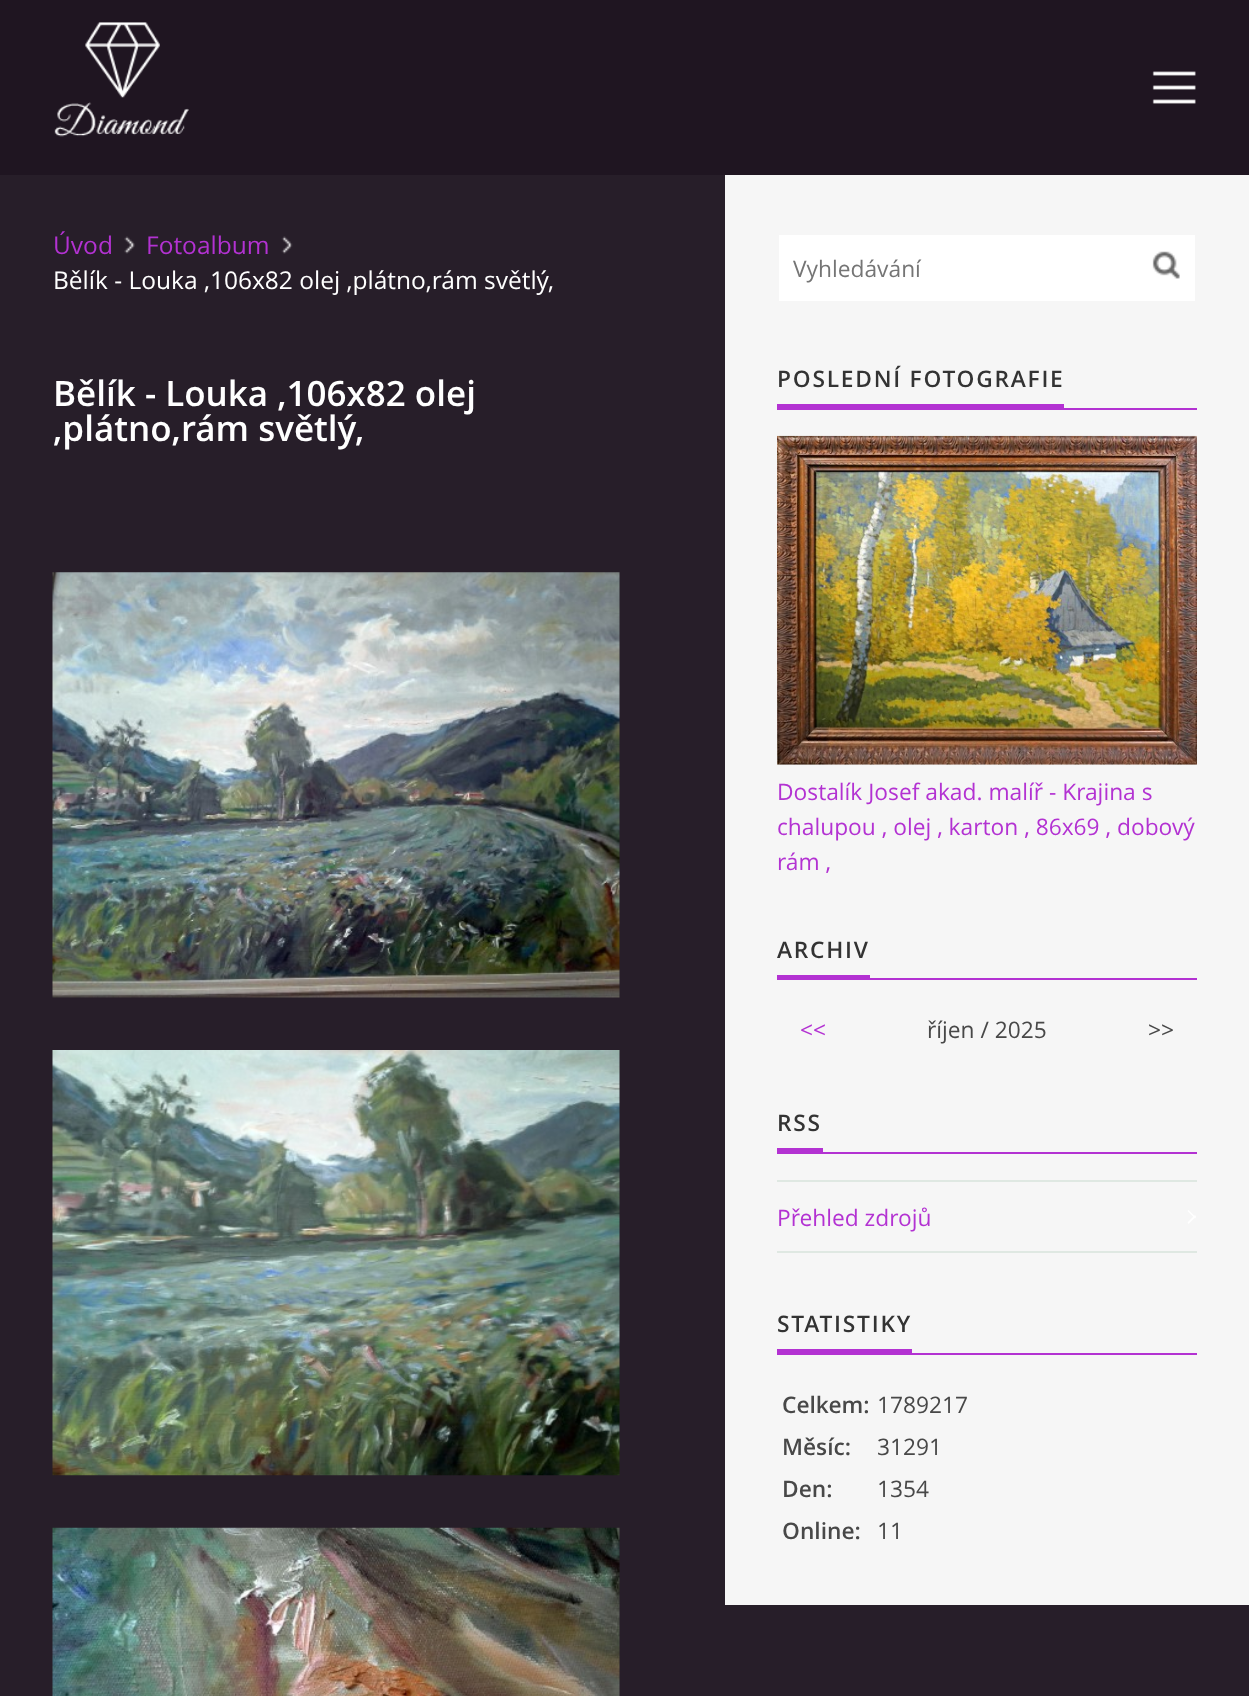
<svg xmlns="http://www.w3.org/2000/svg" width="1249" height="1696">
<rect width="100%" height="100%" fill="#271e29"/>
<rect width="1249" height="175" fill="#1f1521"/>
<image x="54" y="22" width="135" height="115" href="media/1.png"/>
<image x="1152" y="71" width="44" height="33" href="media/2.png"/>
<image x="124" y="236" width="11" height="18" href="media/3.png"/>
<text x="53" y="254" style="font-family:Open Sans;font-size:24.5px;fill:#b332d2">Úvod</text>
<image x="281" y="236" width="12" height="18" href="media/4.png"/>
<text x="146" y="254" style="font-family:Open Sans;font-size:24.5px;fill:#b332d2">Fotoalbum</text>
<text x="53" y="289" style="font-family:Open Sans;font-size:24.5px;fill:#fff">Bělík - Louka ,106x82 olej ,plátno,rám světlý,</text>
<text x="53" y="406" style="font-family:Open Sans;font-size:35px;font-weight:600;fill:#fff">Bělík - Louka ,106x82 olej</text>
<text x="53" y="441" style="font-family:Open Sans;font-size:35px;font-weight:600;fill:#fff">,plátno,rám světlý,</text>
<image x="52" y="572" width="568" height="426" href="media/5.png"/>
<image x="52" y="1050" width="568" height="426" href="media/6.png"/>
<image x="52" y="1527" width="568" height="169" href="media/7.png"/>
<rect x="725" y="175" width="524" height="1430" fill="#f6f6f6"/>
<rect x="779" y="235" width="416" height="66" fill="#fff"/>
<text x="793" y="277" style="font-family:Open Sans;font-size:22.75px;fill:#757575">Vyhledávání</text>
<image x="1152" y="251" width="28" height="28" href="media/8.png"/>
<text x="777" y="387" style="font-family:Open Sans;font-size:22.75px;font-weight:600;letter-spacing:1.75px;fill:#333">POSLEDNÍ FOTOGRAFIE</text>
<rect x="777" y="404" width="287" height="4" fill="#b332d2"/>
<rect x="777" y="408" width="420" height="2" fill="#b332d2"/>
<image x="777" y="435" width="420" height="330" href="media/9.png"/>
<text x="777" y="800" style="font-family:Open Sans;font-size:22.75px;fill:#b332d2">Dostalík Josef akad. malíř - Krajina s</text>
<text x="777" y="835" style="font-family:Open Sans;font-size:22.75px;fill:#b332d2">chalupou , olej , karton , 86x69 , dobový</text>
<text x="777" y="870" style="font-family:Open Sans;font-size:22.75px;fill:#b332d2">rám ,</text>
<text x="777" y="958" style="font-family:Open Sans;font-size:22.75px;font-weight:600;letter-spacing:1.75px;fill:#333">ARCHIV</text>
<rect x="777" y="975" width="93" height="3" fill="#b332d2"/>
<rect x="777" y="978" width="420" height="2" fill="#b332d2"/>
<text x="800" y="1038" style="font-family:Open Sans;font-size:22.75px;fill:#b332d2">&lt;&lt;</text>
<text x="927" y="1038" style="font-family:Open Sans;font-size:22.75px;fill:#484848">říjen / 2025</text>
<text x="1148" y="1038" style="font-family:Open Sans;font-size:22.75px;fill:#484848">&gt;&gt;</text>
<text x="777" y="1131" style="font-family:Open Sans;font-size:22.75px;font-weight:600;letter-spacing:1.75px;fill:#333">RSS</text>
<rect x="777" y="1148" width="46" height="4" fill="#b332d2"/>
<rect x="777" y="1152" width="420" height="2" fill="#b332d2"/>
<rect x="777" y="1180" width="420" height="2" fill="#dfe8e2"/>
<rect x="777" y="1251" width="420" height="2" fill="#dfe8e2"/>
<text x="777" y="1226" style="font-family:Open Sans;font-size:22.75px;fill:#b332d2">Přehled zdrojů</text>
<path d="M1188.5 1210l7.5 7.5l-1 1l-7.5-7.5z" fill="#fff"/>
<path d="M1187.5 1222.5l7.5-7.5l1 1.5l-7.5 7.5z" fill="#fff"/>
<text x="777" y="1332" style="font-family:Open Sans;font-size:22.75px;font-weight:600;letter-spacing:1.75px;fill:#333">STATISTIKY</text>
<rect x="777" y="1349" width="135" height="4" fill="#b332d2"/>
<rect x="777" y="1353" width="420" height="2" fill="#b332d2"/>
<text x="782" y="1413" style="font-family:Open Sans;font-size:22.75px;font-weight:600;fill:#484848">Celkem:</text>
<text x="877" y="1413" style="font-family:Open Sans;font-size:22.75px;fill:#484848">1789217</text>
<text x="782" y="1455" style="font-family:Open Sans;font-size:22.75px;font-weight:600;fill:#484848">Měsíc:</text>
<text x="877" y="1455" style="font-family:Open Sans;font-size:22.75px;fill:#484848">31291</text>
<text x="782" y="1497" style="font-family:Open Sans;font-size:22.75px;font-weight:600;fill:#484848">Den:</text>
<text x="877" y="1497" style="font-family:Open Sans;font-size:22.75px;fill:#484848">1354</text>
<text x="782" y="1539" style="font-family:Open Sans;font-size:22.75px;font-weight:600;fill:#484848">Online:</text>
<text x="877" y="1539" style="font-family:Open Sans;font-size:22.75px;fill:#484848">11</text>
</svg>
